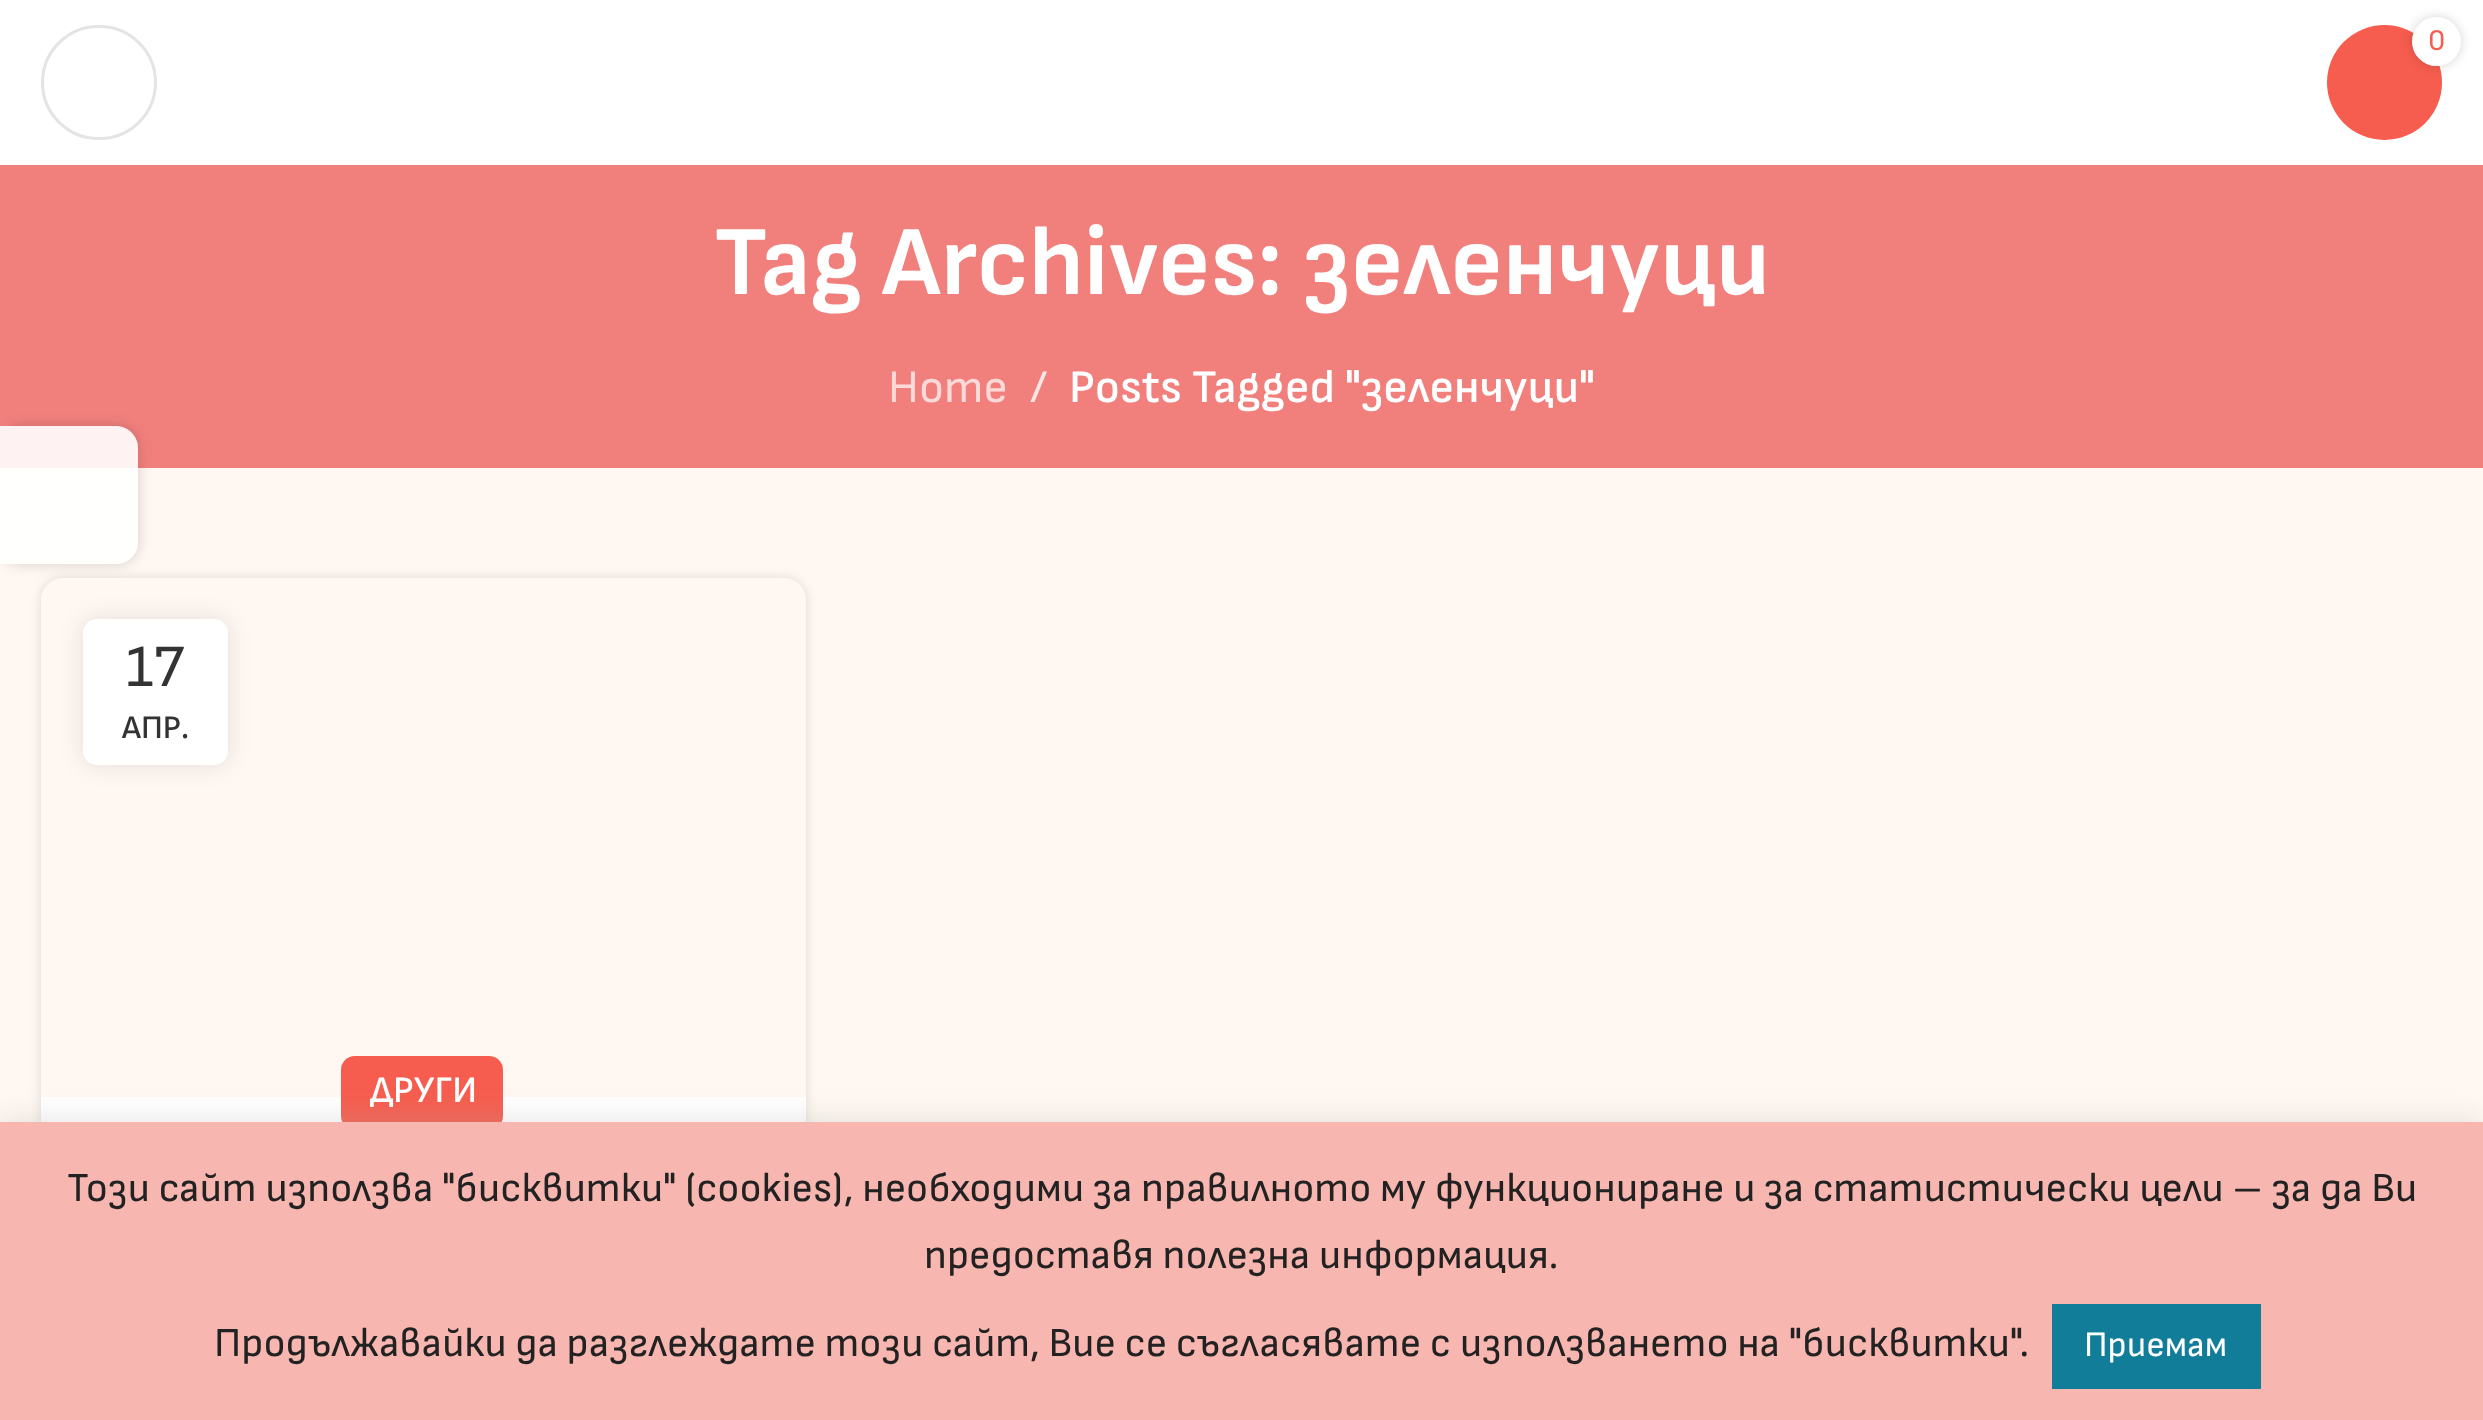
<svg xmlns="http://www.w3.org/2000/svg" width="2483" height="1420">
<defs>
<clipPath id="clip1"><path d="M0 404h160v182h-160zm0 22h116c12 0 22 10 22 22v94c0 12-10 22-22 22h-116z" clip-rule="evenodd"/></clipPath>
<clipPath id="clip2"><path d="M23 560h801v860h-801zm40 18h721c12 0 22 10 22 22v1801c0 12-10 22-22 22h-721c-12 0-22-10-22-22v-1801c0-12 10-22 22-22z" clip-rule="evenodd"/></clipPath>
</defs>
<rect width="100%" height="100%" fill="#fff"/>
<rect y="468" width="2483" height="654" fill="#fff8f2"/>
<rect y="165" width="2483" height="303" fill="#f1807d"/>
<g clip-path="url(#clip1)">
<rect y="426" width="138" height="138" rx="22" fill="#0000002b" filter="blur(7px)"/>
</g>
<g clip-path="url(#clip2)">
<rect x="41" y="578" width="765" height="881" rx="22" fill="#0000001f" filter="blur(5.5px)"/>
</g>
<path d="M0 426h116c12 0 22 10 22 22v94c0 12-10 22-22 22h-116z" fill="#ffffffe6"/>
<rect x="42.5" y="26.5" width="113" height="112" rx="56" fill="none" stroke="#e4e4e4" stroke-width="3"/>
<circle cx="2384.5" cy="82.5" r="57.5" fill="#f65d4e"/>
<rect x="2412" y="17" width="49" height="49" rx="24.5" fill="#0000002b" filter="blur(5.5px)"/>
<circle cx="2436.5" cy="41.5" r="24.5" fill="#fff"/>
<text x="2428" y="50" style="font-family:Sofia Sans;font-size:30px;fill:#f65d4e">0</text>
<text x="714" y="294" style="font-family:Sofia Sans;font-size:99px;font-weight:bold;fill:#fff">Tag Archives: зеленчуци</text>
<text x="888" y="402" style="font-family:Sofia Sans;font-size:46.75px;fill:#fbd9d8">Home</text>
<text x="1030" y="402" style="font-family:Sofia Sans;font-size:46.75px;fill:#fce6e5">/</text>
<text x="1069" y="402" style="font-family:Sofia Sans;font-size:46.75px;font-weight:600;fill:#fff">Posts Tagged "зеленчуци"</text>
<rect x="83" y="619" width="145" height="146" rx="14" fill="#0000001a" filter="blur(12.5px)"/>
<rect x="83" y="619" width="145" height="146" rx="14" fill="#fff"/>
<text x="126" y="686" style="font-family:Sofia Sans;font-size:60px;fill:#333">17</text>
<text x="122" y="738" style="font-family:Sofia Sans;font-size:33px;font-weight:600;fill:#333">АПР.</text>
<rect x="41" y="1097" width="765" height="25" fill="#fff"/>
<rect x="341" y="1056" width="162" height="74" rx="14" fill="#f65d4e"/>
<text x="370" y="1102" style="font-family:Sofia Sans;font-size:37.5px;font-weight:600;fill:#fff">ДРУГИ</text>
<rect y="1119" width="2483" height="300" fill="#acabab4d" filter="blur(14px)"/>
<rect y="1122" width="2483" height="298" fill="#f7b6af"/>
<text x="67" y="1201" style="font-family:Sofia Sans;font-size:41.25px;fill:#222">Този сайт използва "бисквитки" (cookies), необходими за правилното му функциониране и за статистически цели – за да Ви</text>
<text x="924" y="1268" style="font-family:Sofia Sans;font-size:41.25px;fill:#222">предоставя полезна информация.</text>
<text x="214" y="1356" style="font-family:Sofia Sans;font-size:41.25px;fill:#222">Продължавайки да разглеждате този сайт, Вие се съгласявате с използването на "бисквитки".</text>
<rect x="2052" y="1304" width="209" height="85" fill="#117d99"/>
<text x="2084" y="1356" style="font-family:Sofia Sans;font-size:35.75px;fill:#fff">Приемам</text>
</svg>
